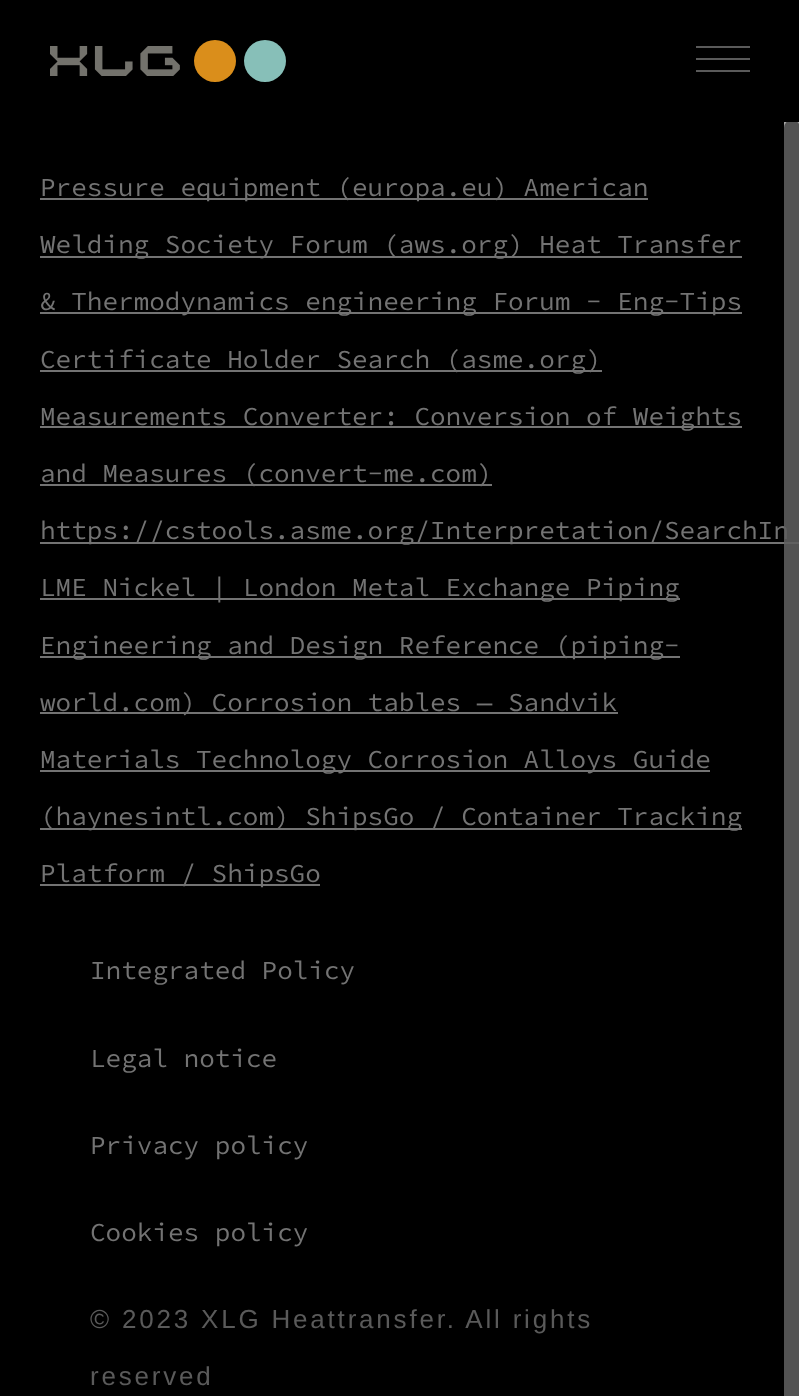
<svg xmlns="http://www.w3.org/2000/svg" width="799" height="1396">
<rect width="100%" height="100%" fill="#000"/>
<image x="50" y="46" width="130" height="30" href="media/1.png"/>
<circle cx="215" cy="61" r="21" fill="#da8e1b"/>
<circle cx="265" cy="61" r="21" fill="#87bfb8"/>
<rect x="696" y="46" width="54" height="2" fill="#5a5a5a"/>
<rect x="696" y="58" width="54" height="2" fill="#5a5a5a"/>
<rect x="696" y="70" width="54" height="2" fill="#5a5a5a"/>
<rect x="40" y="198" width="608" height="2" fill="#737373"/>
<text x="40" y="196" style="font-family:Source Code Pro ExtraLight;font-size:26px;fill:#737373">Pressure equipment (europa.eu) American</text>
<rect x="40" y="256" width="702" height="2" fill="#737373"/>
<text x="40" y="253" style="font-family:Source Code Pro ExtraLight;font-size:26px;fill:#737373">Welding Society Forum (aws.org) Heat Transfer</text>
<rect x="40" y="312" width="702" height="2" fill="#737373"/>
<text x="40" y="310" style="font-family:Source Code Pro ExtraLight;font-size:26px;fill:#737373">&amp; Thermodynamics engineering Forum - Eng-Tips</text>
<rect x="40" y="370" width="562" height="2" fill="#737373"/>
<text x="40" y="368" style="font-family:Source Code Pro ExtraLight;font-size:26px;fill:#737373">Certificate Holder Search (asme.org)</text>
<rect x="40" y="426" width="702" height="2" fill="#737373"/>
<text x="40" y="425" style="font-family:Source Code Pro ExtraLight;font-size:26px;fill:#737373">Measurements Converter: Conversion of Weights</text>
<rect x="40" y="484" width="452" height="2" fill="#737373"/>
<text x="40" y="482" style="font-family:Source Code Pro ExtraLight;font-size:26px;fill:#737373">and Measures (convert-me.com)</text>
<rect x="40" y="542" width="759" height="2" fill="#737373"/>
<text x="40" y="539" style="font-family:Source Code Pro ExtraLight;font-size:26px;fill:#737373">https://cstools.asme.org/Interpretation/SearchIn</text>
<rect x="40" y="598" width="640" height="2" fill="#737373"/>
<text x="40" y="596" style="font-family:Source Code Pro ExtraLight;font-size:26px;fill:#737373">LME Nickel | London Metal Exchange Piping</text>
<rect x="40" y="656" width="640" height="2" fill="#737373"/>
<text x="40" y="654" style="font-family:Source Code Pro ExtraLight;font-size:26px;fill:#737373">Engineering and Design Reference (piping-</text>
<rect x="40" y="712" width="578" height="2" fill="#737373"/>
<text x="40" y="711" style="font-family:Source Code Pro ExtraLight;font-size:26px;fill:#737373">world.com) Corrosion tables — Sandvik</text>
<rect x="40" y="770" width="670" height="2" fill="#737373"/>
<text x="40" y="768" style="font-family:Source Code Pro ExtraLight;font-size:26px;fill:#737373">Materials Technology Corrosion Alloys Guide</text>
<rect x="40" y="828" width="702" height="2" fill="#737373"/>
<text x="40" y="825" style="font-family:Source Code Pro ExtraLight;font-size:26px;fill:#737373">(haynesintl.com) ShipsGo / Container Tracking</text>
<rect x="40" y="884" width="280" height="2" fill="#737373"/>
<text x="40" y="882" style="font-family:Source Code Pro ExtraLight;font-size:26px;fill:#737373">Platform / ShipsGo</text>
<text x="90" y="979" style="font-family:Source Code Pro ExtraLight;font-size:26px;fill:#737373">Integrated Policy</text>
<text x="90" y="1067" style="font-family:Source Code Pro ExtraLight;font-size:26px;fill:#737373">Legal notice</text>
<text x="90" y="1154" style="font-family:Source Code Pro ExtraLight;font-size:26px;fill:#737373">Privacy policy</text>
<text x="90" y="1241" style="font-family:Source Code Pro ExtraLight;font-size:26px;fill:#737373">Cookies policy</text>
<text x="90" y="1328" style="font-family:Liberation Sans;font-size:26px;letter-spacing:2.8px;fill:#5a5a5a">© 2023 XLG Heattransfer. All rights</text>
<text x="90" y="1385" style="font-family:Liberation Sans;font-size:26px;letter-spacing:2.8px;fill:#5a5a5a">reserved</text>
<rect x="784" y="122" width="15" height="1274" fill="#dededebf"/>
<rect x="784" y="120" width="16" height="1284" rx="8" fill="#00000080"/>
</svg>
